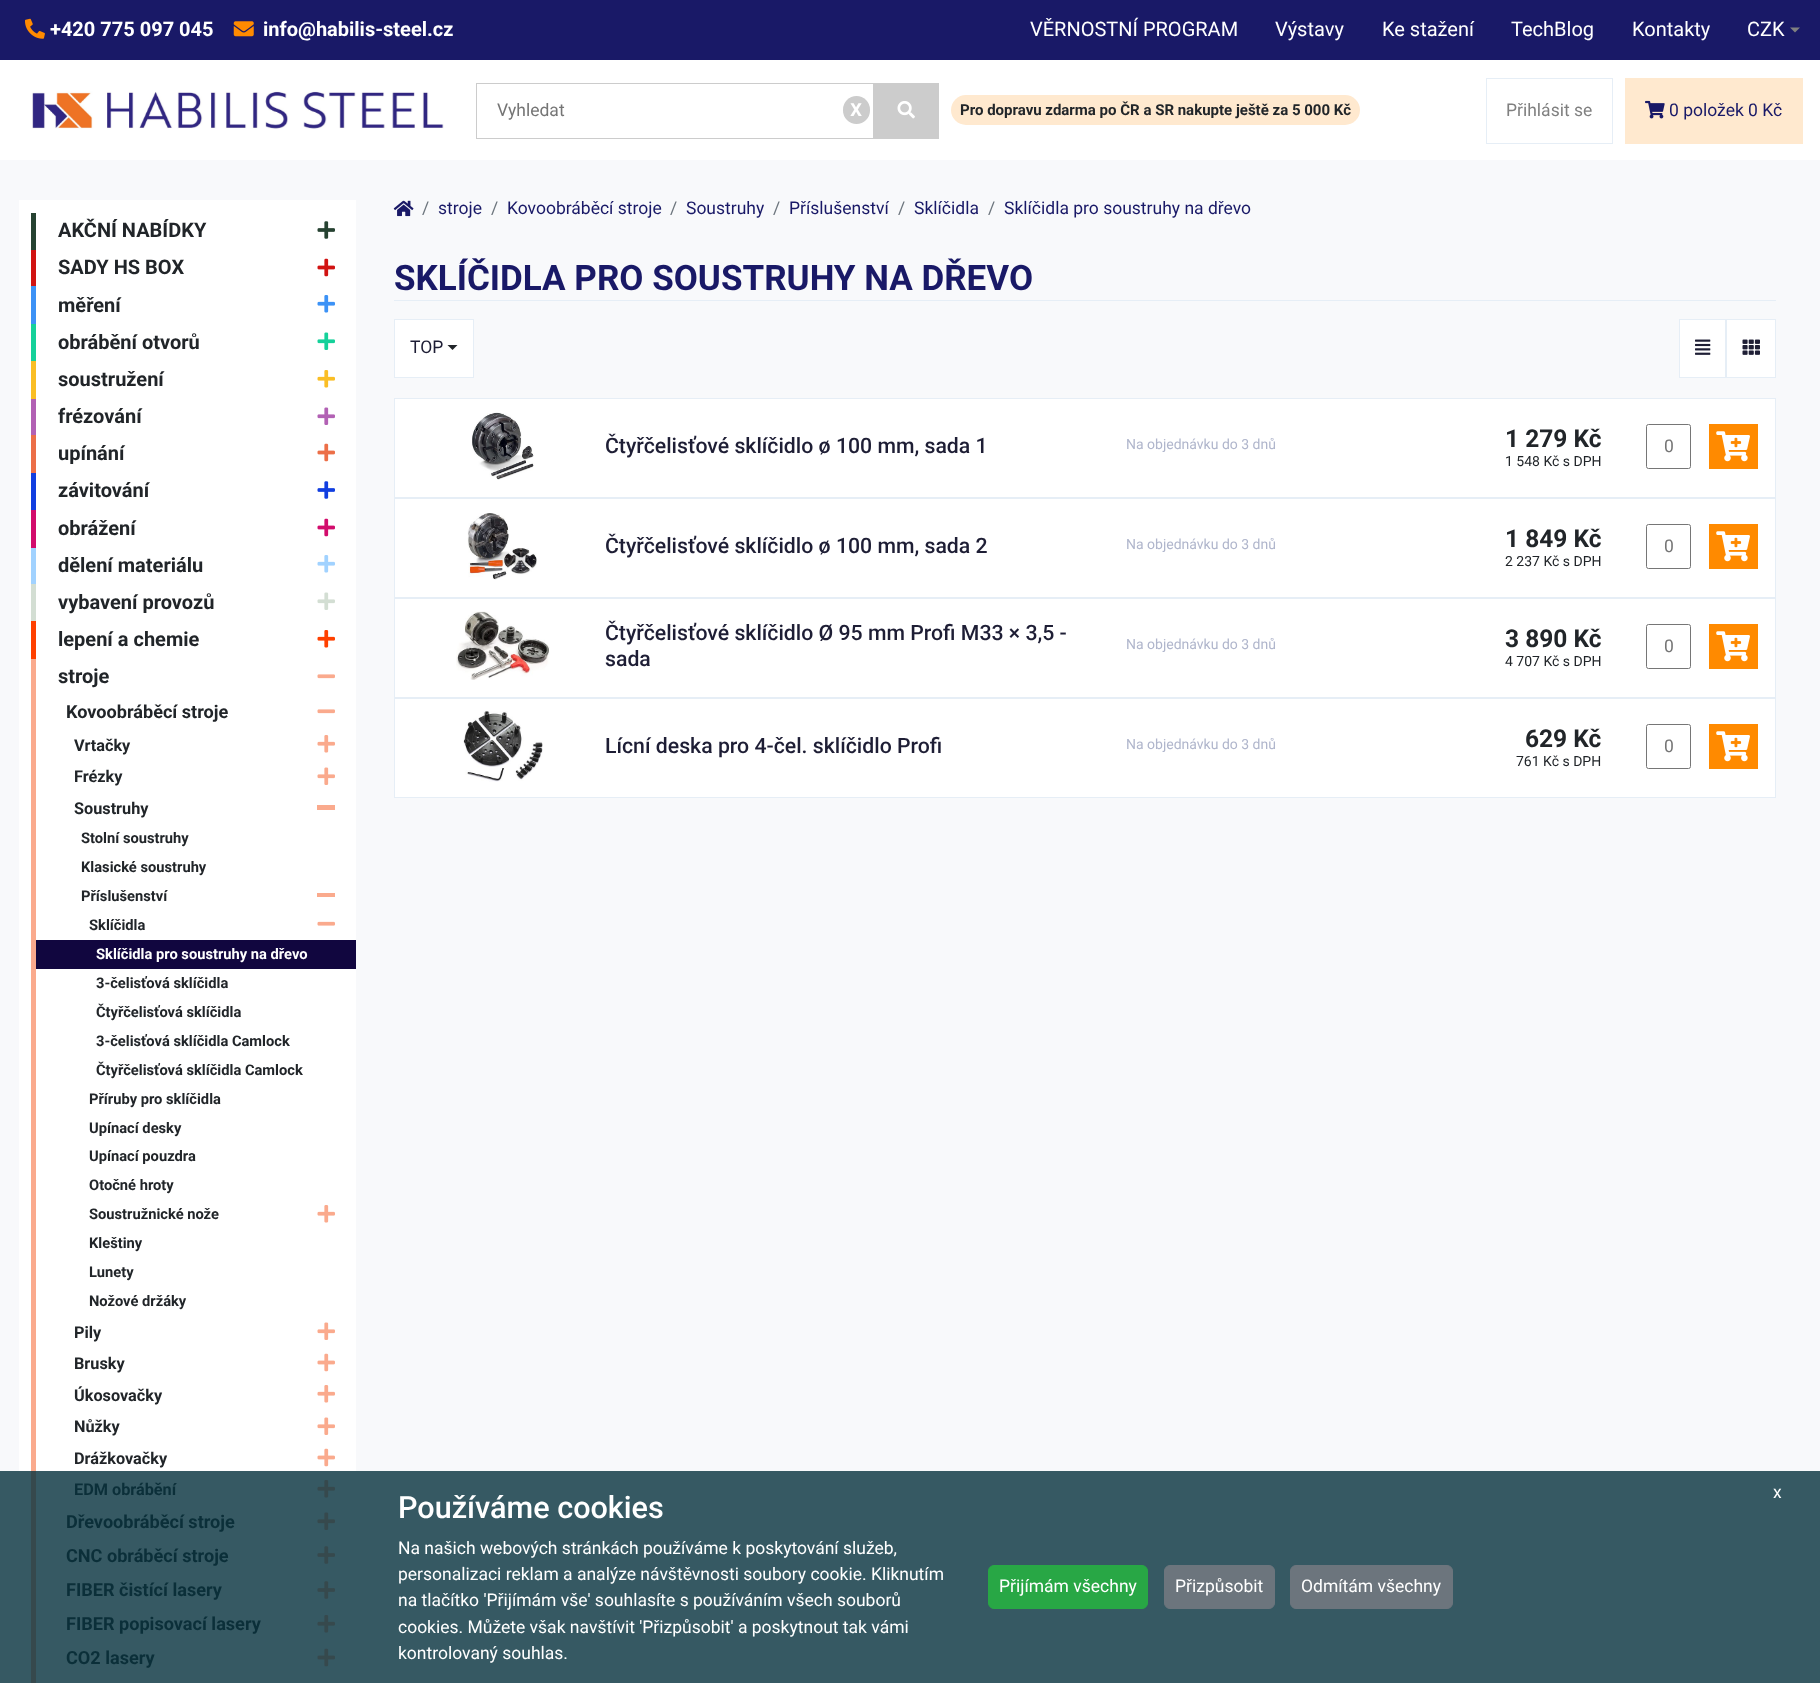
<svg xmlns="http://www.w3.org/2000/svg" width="1820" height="1683">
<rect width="100%" height="100%" fill="#fff"/>
<rect width="1820" height="60" fill="#191967"/>
<image x="25" y="18" width="20" height="21" href="media/1.png"/>
<text x="50" y="36" style="font-family:Roboto;font-size:20px;font-weight:bold;fill:#fff">+420 775 097 045</text>
<image x="233" y="21" width="21" height="16" href="media/2.png"/>
<text x="263" y="36" style="font-family:Roboto;font-size:20px;font-weight:bold;fill:#fff">info@habilis-steel.cz</text>
<text x="1030" y="36" style="font-family:Roboto;font-size:20px;fill:#fff">VĚRNOSTNÍ PROGRAM</text>
<text x="1275" y="36" style="font-family:Roboto;font-size:20px;fill:#fff">Výstavy</text>
<text x="1382" y="36" style="font-family:Roboto;font-size:20px;fill:#fff">Ke stažení</text>
<text x="1511" y="36" style="font-family:Roboto;font-size:20px;fill:#fff">TechBlog</text>
<text x="1632" y="36" style="font-family:Roboto;font-size:20px;fill:#fff">Kontakty</text>
<text x="1747" y="36" style="font-family:Roboto;font-size:20px;fill:#fff">CZK</text>
<path d="M1790 27.5h10l-5 5z" fill="#808080"/>
<image x="32" y="91" width="412" height="38" href="media/3.png"/>
<rect x="476.5" y="83.5" width="397" height="55" fill="none" stroke="#ccc"/>
<text x="497" y="116" style="font-family:Roboto;font-size:17.5px;fill:#757575">Vyhledat</text>
<rect x="843" y="96" width="27" height="28" rx="13.5" fill="#ccc"/>
<text x="850" y="116" style="font-family:Roboto;font-size:24px;font-weight:500;fill:#fff">x</text>
<rect x="874" y="83" width="65" height="56" fill="#ccc"/>
<image x="897" y="101" width="18" height="18" href="media/4.png"/>
<rect x="951" y="95" width="409" height="30" rx="15" fill="#ffe9cf"/>
<text x="960" y="115" style="font-family:Roboto;font-size:15px;font-weight:bold;fill:#212529">Pro dopravu zdarma po ČR a SR nakupte ještě za 5 000 Kč</text>
<rect x="1486.5" y="78.5" width="126" height="65" fill="none" stroke="#e6eef6"/>
<text x="1506" y="116" style="font-family:Roboto;font-size:17.5px;fill:#808080">Přihlásit se</text>
<rect x="1625" y="78" width="178" height="66" fill="#ffe9cf"/>
<image x="1645" y="100" width="20" height="19" href="media/5.png"/>
<text x="1669" y="116" style="font-family:Roboto;font-size:17.5px;fill:#191967">0 položek 0 Kč</text>
<rect y="160" width="1820" height="1311" fill="#f8f9fb"/>
<rect y="1471" width="1820" height="212" fill="#365963"/>
<rect x="19" y="200" width="337" height="1271" fill="#fff"/>
<rect x="31" y="213" width="5" height="37" fill="#264231"/>
<text x="58" y="237" style="font-family:Roboto;font-size:20px;font-weight:bold;fill:#212529">AKČNÍ NABÍDKY</text>
<image x="317" y="221" width="18" height="18" href="media/6.png"/>
<rect x="31" y="250" width="5" height="36" fill="#d11312"/>
<text x="58" y="274" style="font-family:Roboto;font-size:20px;font-weight:bold;fill:#212529">SADY HS BOX</text>
<image x="317" y="258" width="18" height="19" href="media/7.png"/>
<rect x="31" y="286" width="5" height="38" fill="#3c92f6"/>
<text x="58" y="312" style="font-family:Roboto;font-size:20px;font-weight:bold;fill:#212529">měření</text>
<image x="317" y="295" width="18" height="18" href="media/8.png"/>
<rect x="31" y="324" width="5" height="37" fill="#15d19a"/>
<text x="58" y="349" style="font-family:Roboto;font-size:20px;font-weight:bold;fill:#212529">obrábění otvorů</text>
<image x="317" y="332" width="18" height="18" href="media/9.png"/>
<rect x="31" y="361" width="5" height="38" fill="#fabe25"/>
<text x="58" y="386" style="font-family:Roboto;font-size:20px;font-weight:bold;fill:#212529">soustružení</text>
<image x="317" y="370" width="18" height="18" href="media/10.png"/>
<rect x="31" y="399" width="5" height="36" fill="#b261b4"/>
<text x="58" y="423" style="font-family:Roboto;font-size:20px;font-weight:bold;fill:#212529">frézování</text>
<image x="317" y="407" width="18" height="18" href="media/11.png"/>
<rect x="31" y="435" width="5" height="38" fill="#ec6f48"/>
<text x="58" y="460" style="font-family:Roboto;font-size:20px;font-weight:bold;fill:#212529">upínání</text>
<image x="317" y="443" width="18" height="19" href="media/12.png"/>
<rect x="31" y="473" width="5" height="37" fill="#113ee0"/>
<text x="58" y="497" style="font-family:Roboto;font-size:20px;font-weight:bold;fill:#212529">závitování</text>
<image x="317" y="481" width="18" height="18" href="media/13.png"/>
<rect x="31" y="510" width="5" height="38" fill="#d20c6c"/>
<text x="58" y="535" style="font-family:Roboto;font-size:20px;font-weight:bold;fill:#212529">obrážení</text>
<image x="317" y="518" width="18" height="19" href="media/14.png"/>
<rect x="31" y="548" width="5" height="36" fill="#a1d2ff"/>
<text x="58" y="572" style="font-family:Roboto;font-size:20px;font-weight:bold;fill:#212529">dělení materiálu</text>
<image x="317" y="555" width="18" height="18" href="media/15.png"/>
<rect x="31" y="584" width="5" height="37" fill="#d3ded3"/>
<text x="58" y="609" style="font-family:Roboto;font-size:20px;font-weight:bold;fill:#212529">vybavení provozů</text>
<image x="317" y="592" width="18" height="18" href="media/16.png"/>
<rect x="31" y="621" width="5" height="38" fill="#ff4000"/>
<text x="58" y="646" style="font-family:Roboto;font-size:20px;font-weight:bold;fill:#212529">lepení a chemie</text>
<image x="317" y="630" width="18" height="18" href="media/17.png"/>
<rect x="31" y="659" width="5" height="281" fill="#faaa8d"/>
<text x="58" y="683" style="font-family:Roboto;font-size:20px;font-weight:bold;fill:#212529">stroje</text>
<image x="317" y="674" width="18" height="5" href="media/18.png"/>
<text x="66" y="718" style="font-family:Roboto;font-size:18.1px;font-weight:bold;fill:#212529">Kovoobráběcí stroje</text>
<image x="317" y="709" width="18" height="5" href="media/18.png"/>
<text x="74" y="751" style="font-family:Roboto;font-size:16.25px;font-weight:bold;fill:#212529">Vrtačky</text>
<image x="317" y="735" width="18" height="18" href="media/19.png"/>
<text x="74" y="782" style="font-family:Roboto;font-size:16.25px;font-weight:bold;fill:#212529">Frézky</text>
<image x="317" y="767" width="18" height="18" href="media/20.png"/>
<text x="74" y="814" style="font-family:Roboto;font-size:16.25px;font-weight:bold;fill:#212529">Soustruhy</text>
<rect x="317" y="805" width="18" height="5" fill="#faaa8d"/>
<text x="81" y="843" style="font-family:Roboto;font-size:14.7px;font-weight:bold;fill:#212529">Stolní soustruhy</text>
<text x="81" y="872" style="font-family:Roboto;font-size:14.7px;font-weight:bold;fill:#212529">Klasické soustruhy</text>
<text x="81" y="901" style="font-family:Roboto;font-size:14.7px;font-weight:bold;fill:#212529">Příslušenství</text>
<rect x="317" y="893" width="18" height="4" fill="#faaa8d"/>
<text x="89" y="930" style="font-family:Roboto;font-size:14.7px;font-weight:bold;fill:#212529">Sklíčidla</text>
<image x="317" y="921" width="18" height="5" href="media/21.png"/>
<rect x="36" y="940" width="320" height="29" fill="#11063f"/>
<text x="96" y="959" style="font-family:Roboto;font-size:14.7px;font-weight:bold;fill:#fff">Sklíčidla pro soustruhy na dřevo</text>
<rect x="31" y="940" width="5" height="534" fill="#faaa8d"/>
<text x="96" y="988" style="font-family:Roboto;font-size:14.7px;font-weight:bold;fill:#212529">3-čelisťová sklíčidla</text>
<text x="96" y="1017" style="font-family:Roboto;font-size:14.7px;font-weight:bold;fill:#212529">Čtyřčelisťová sklíčidla</text>
<text x="96" y="1046" style="font-family:Roboto;font-size:14.7px;font-weight:bold;fill:#212529">3-čelisťová sklíčidla Camlock</text>
<text x="96" y="1075" style="font-family:Roboto;font-size:14.7px;font-weight:bold;fill:#212529">Čtyřčelisťová sklíčidla Camlock</text>
<text x="89" y="1104" style="font-family:Roboto;font-size:14.7px;font-weight:bold;fill:#212529">Příruby pro sklíčidla</text>
<text x="89" y="1133" style="font-family:Roboto;font-size:14.7px;font-weight:bold;fill:#212529">Upínací desky</text>
<text x="89" y="1161" style="font-family:Roboto;font-size:14.7px;font-weight:bold;fill:#212529">Upínací pouzdra</text>
<text x="89" y="1190" style="font-family:Roboto;font-size:14.7px;font-weight:bold;fill:#212529">Otočné hroty</text>
<text x="89" y="1219" style="font-family:Roboto;font-size:14.7px;font-weight:bold;fill:#212529">Soustružnické nože</text>
<image x="317" y="1205" width="18" height="18" href="media/19.png"/>
<text x="89" y="1248" style="font-family:Roboto;font-size:14.7px;font-weight:bold;fill:#212529">Kleštiny</text>
<text x="89" y="1277" style="font-family:Roboto;font-size:14.7px;font-weight:bold;fill:#212529">Lunety</text>
<text x="89" y="1306" style="font-family:Roboto;font-size:14.7px;font-weight:bold;fill:#212529">Nožové držáky</text>
<text x="74" y="1338" style="font-family:Roboto;font-size:16.25px;font-weight:bold;fill:#212529">Pily</text>
<image x="317" y="1322" width="18" height="18" href="media/20.png"/>
<text x="74" y="1369" style="font-family:Roboto;font-size:16.25px;font-weight:bold;fill:#212529">Brusky</text>
<image x="317" y="1353" width="18" height="19" href="media/22.png"/>
<text x="74" y="1401" style="font-family:Roboto;font-size:16.25px;font-weight:bold;fill:#212529">Úkosovačky</text>
<image x="317" y="1385" width="18" height="18" href="media/19.png"/>
<text x="74" y="1432" style="font-family:Roboto;font-size:16.25px;font-weight:bold;fill:#212529">Nůžky</text>
<image x="317" y="1417" width="18" height="18" href="media/20.png"/>
<rect x="31" y="1471" width="5" height="212" fill="#36494d"/>
<text x="74" y="1464" style="font-family:Roboto;font-size:16.25px;font-weight:bold;fill:#212529">Drážkovačky</text>
<image x="317" y="1448" width="18" height="19" href="media/22.png"/>
<text x="74" y="1495" style="font-family:Roboto;font-size:16.25px;font-weight:bold;fill:#0b2f39">EDM obrábění</text>
<image x="317" y="1480" width="18" height="18" href="media/23.png"/>
<text x="66" y="1528" style="font-family:Roboto;font-size:18.1px;font-weight:bold;fill:#0b2f39">Dřevoobráběcí stroje</text>
<image x="317" y="1512" width="18" height="18" href="media/24.png"/>
<text x="66" y="1562" style="font-family:Roboto;font-size:18.1px;font-weight:bold;fill:#0b2f39">CNC obráběcí stroje</text>
<image x="317" y="1546" width="18" height="18" href="media/25.png"/>
<text x="66" y="1596" style="font-family:Roboto;font-size:18.1px;font-weight:bold;fill:#0b2f39">FIBER čistící lasery</text>
<image x="317" y="1581" width="18" height="18" href="media/25.png"/>
<text x="66" y="1630" style="font-family:Roboto;font-size:18.1px;font-weight:bold;fill:#0b2f39">FIBER popisovací lasery</text>
<image x="317" y="1615" width="18" height="18" href="media/23.png"/>
<text x="66" y="1664" style="font-family:Roboto;font-size:18.1px;font-weight:bold;fill:#0b2f39">CO2 lasery</text>
<image x="317" y="1648" width="18" height="19" href="media/26.png"/>
<image x="393" y="200" width="21" height="17" href="media/27.png"/>
<text x="422" y="214" style="font-family:Roboto;font-size:17.5px;fill:#6c757d">/</text>
<text x="438" y="214" style="font-family:Roboto;font-size:17.5px;fill:#191967">stroje</text>
<text x="491" y="214" style="font-family:Roboto;font-size:17.5px;fill:#6c757d">/</text>
<text x="507" y="214" style="font-family:Roboto;font-size:17.5px;fill:#191967">Kovoobráběcí stroje</text>
<text x="670" y="214" style="font-family:Roboto;font-size:17.5px;fill:#6c757d">/</text>
<text x="686" y="214" style="font-family:Roboto;font-size:17.5px;fill:#191967">Soustruhy</text>
<text x="773" y="214" style="font-family:Roboto;font-size:17.5px;fill:#6c757d">/</text>
<text x="789" y="214" style="font-family:Roboto;font-size:17.5px;fill:#191967">Příslušenství</text>
<text x="898" y="214" style="font-family:Roboto;font-size:17.5px;fill:#6c757d">/</text>
<text x="914" y="214" style="font-family:Roboto;font-size:17.5px;fill:#191967">Sklíčidla</text>
<text x="988" y="214" style="font-family:Roboto;font-size:17.5px;fill:#6c757d">/</text>
<text x="1004" y="214" style="font-family:Roboto;font-size:17.5px;fill:#191967">Sklíčidla pro soustruhy na dřevo</text>
<rect x="394" y="300" width="1382" height="1" fill="#e6eef6"/>
<text x="394" y="290" style="font-family:Roboto;font-size:35px;font-weight:bold;fill:#191967">SKLÍČIDLA PRO SOUSTRUHY NA DŘEVO</text>
<rect x="394.5" y="319.5" width="79" height="58" fill="#fff" stroke="#e6eef6"/>
<text x="410" y="353" style="font-family:Roboto;font-size:17.5px;fill:#1e1e35">TOP</text>
<path d="M447.5 345h10l-5 5z" fill="#212529"/>
<rect x="1680" y="320" width="95" height="57" fill="#fff"/>
<rect x="1679.5" y="319.5" width="46" height="58" fill="none" stroke="#e6eef6"/>
<image x="1695" y="339" width="16" height="16" href="media/28.png"/>
<rect x="1726.5" y="319.5" width="49" height="58" fill="none" stroke="#e6eef6"/>
<image x="1742" y="339" width="18" height="16" href="media/29.png"/>
<rect x="394.5" y="398.5" width="1381" height="99" fill="#fff" stroke="#e6eef6"/>
<image x="472" y="412" width="62" height="68" href="media/30.png"/>
<text x="605" y="453" style="font-family:Roboto;font-size:21.25px;font-weight:500;fill:#1e1e35">Čtyřčelisťové sklíčidlo ø 100 mm, sada 1</text>
<text x="1126" y="449" style="font-family:Roboto;font-size:14px;fill:#b0b6cc">Na objednávku do 3 dnů</text>
<text x="1505" y="447" style="font-family:Roboto;font-size:24.5px;font-weight:bold;fill:#212529">1 279 Kč</text>
<text x="1505" y="466" style="font-family:Roboto;font-size:14px;fill:#212529">1 548 Kč s DPH</text>
<rect x="1646.5" y="424.5" width="44" height="44" rx="2" fill="none" stroke="#767676"/>
<text x="1664" y="452" style="font-family:Roboto;font-size:17.5px;fill:#757575">0</text>
<rect x="1709" y="424" width="49" height="45" fill="#ff8a00"/>
<image x="1716" y="431" width="34" height="31" href="media/31.png"/>
<rect x="394.5" y="498.5" width="1381" height="99" fill="#fff" stroke="#e6eef6"/>
<image x="467" y="513" width="70" height="67" href="media/32.png"/>
<text x="605" y="553" style="font-family:Roboto;font-size:21.25px;font-weight:500;fill:#1e1e35">Čtyřčelisťové sklíčidlo ø 100 mm, sada 2</text>
<text x="1126" y="549" style="font-family:Roboto;font-size:14px;fill:#b0b6cc">Na objednávku do 3 dnů</text>
<text x="1505" y="547" style="font-family:Roboto;font-size:24.5px;font-weight:bold;fill:#212529">1 849 Kč</text>
<text x="1505" y="566" style="font-family:Roboto;font-size:14px;fill:#212529">2 237 Kč s DPH</text>
<rect x="1646.5" y="524.5" width="44" height="44" rx="2" fill="none" stroke="#767676"/>
<text x="1664" y="552" style="font-family:Roboto;font-size:17.5px;fill:#757575">0</text>
<rect x="1709" y="524" width="49" height="45" fill="#ff8a00"/>
<image x="1716" y="531" width="34" height="31" href="media/31.png"/>
<rect x="394.5" y="598.5" width="1381" height="99" fill="#fff" stroke="#e6eef6"/>
<image x="456" y="611" width="94" height="69" href="media/33.png"/>
<text x="605" y="640" style="font-family:Roboto;font-size:21.25px;font-weight:500;fill:#1e1e35">Čtyřčelisťové sklíčidlo Ø 95 mm Profi M33 × 3,5 -</text>
<text x="605" y="666" style="font-family:Roboto;font-size:21.25px;font-weight:500;fill:#1e1e35">sada</text>
<text x="1126" y="649" style="font-family:Roboto;font-size:14px;fill:#b0b6cc">Na objednávku do 3 dnů</text>
<text x="1505" y="647" style="font-family:Roboto;font-size:24.5px;font-weight:bold;fill:#212529">3 890 Kč</text>
<text x="1505" y="666" style="font-family:Roboto;font-size:14px;fill:#212529">4 707 Kč s DPH</text>
<rect x="1646.5" y="624.5" width="44" height="44" rx="2" fill="none" stroke="#767676"/>
<text x="1664" y="652" style="font-family:Roboto;font-size:17.5px;fill:#757575">0</text>
<rect x="1709" y="624" width="49" height="45" fill="#ff8a00"/>
<image x="1716" y="631" width="34" height="31" href="media/31.png"/>
<rect x="394.5" y="698.5" width="1381" height="99" fill="#fff" stroke="#e6eef6"/>
<image x="463" y="710" width="80" height="72" href="media/34.png"/>
<text x="605" y="753" style="font-family:Roboto;font-size:21.25px;font-weight:500;fill:#1e1e35">Lícní deska pro 4-čel. sklíčidlo Profi</text>
<text x="1126" y="749" style="font-family:Roboto;font-size:14px;fill:#b0b6cc">Na objednávku do 3 dnů</text>
<text x="1525" y="747" style="font-family:Roboto;font-size:24.5px;font-weight:bold;fill:#212529">629 Kč</text>
<text x="1516" y="766" style="font-family:Roboto;font-size:14px;fill:#212529">761 Kč s DPH</text>
<rect x="1646.5" y="724.5" width="44" height="44" rx="2" fill="none" stroke="#767676"/>
<text x="1664" y="752" style="font-family:Roboto;font-size:17.5px;fill:#757575">0</text>
<rect x="1709" y="724" width="49" height="45" fill="#ff8a00"/>
<image x="1716" y="731" width="34" height="31" href="media/31.png"/>
<text x="1773" y="1498" style="font-family:Roboto;font-size:17.5px;fill:#fff">x</text>
<text x="398" y="1518" style="font-family:Roboto;font-size:30.6px;font-weight:500;fill:#fff">Používáme cookies</text>
<text x="398" y="1554" style="font-family:Roboto;font-size:17.5px;fill:#fff">Na našich webových stránkách používáme k poskytování služeb,</text>
<text x="398" y="1580" style="font-family:Roboto;font-size:17.5px;fill:#fff">personalizaci reklam a analýze návštěvnosti soubory cookie. Kliknutím</text>
<text x="398" y="1606" style="font-family:Roboto;font-size:17.5px;fill:#fff">na tlačítko 'Přijímám vše' souhlasíte s používáním všech souborů</text>
<text x="398" y="1633" style="font-family:Roboto;font-size:17.5px;fill:#fff">cookies. Můžete však navštívit 'Přizpůsobit' a poskytnout tak vámi</text>
<text x="398" y="1659" style="font-family:Roboto;font-size:17.5px;fill:#fff">kontrolovaný souhlas.</text>
<rect x="988.5" y="1565.5" width="159" height="43" rx="5.5" fill="#28a745" stroke="#28a745"/>
<text x="999" y="1592" style="font-family:Roboto;font-size:17.5px;fill:#fff">Přijímám všechny</text>
<rect x="1164.5" y="1565.5" width="110" height="43" rx="5.5" fill="#6c757d" stroke="#6c757d"/>
<text x="1175" y="1592" style="font-family:Roboto;font-size:17.5px;fill:#fff">Přizpůsobit</text>
<rect x="1290.5" y="1565.5" width="162" height="43" rx="5.5" fill="#6c757d" stroke="#6c757d"/>
<text x="1301" y="1592" style="font-family:Roboto;font-size:17.5px;fill:#fff">Odmítám všechny</text>
</svg>
